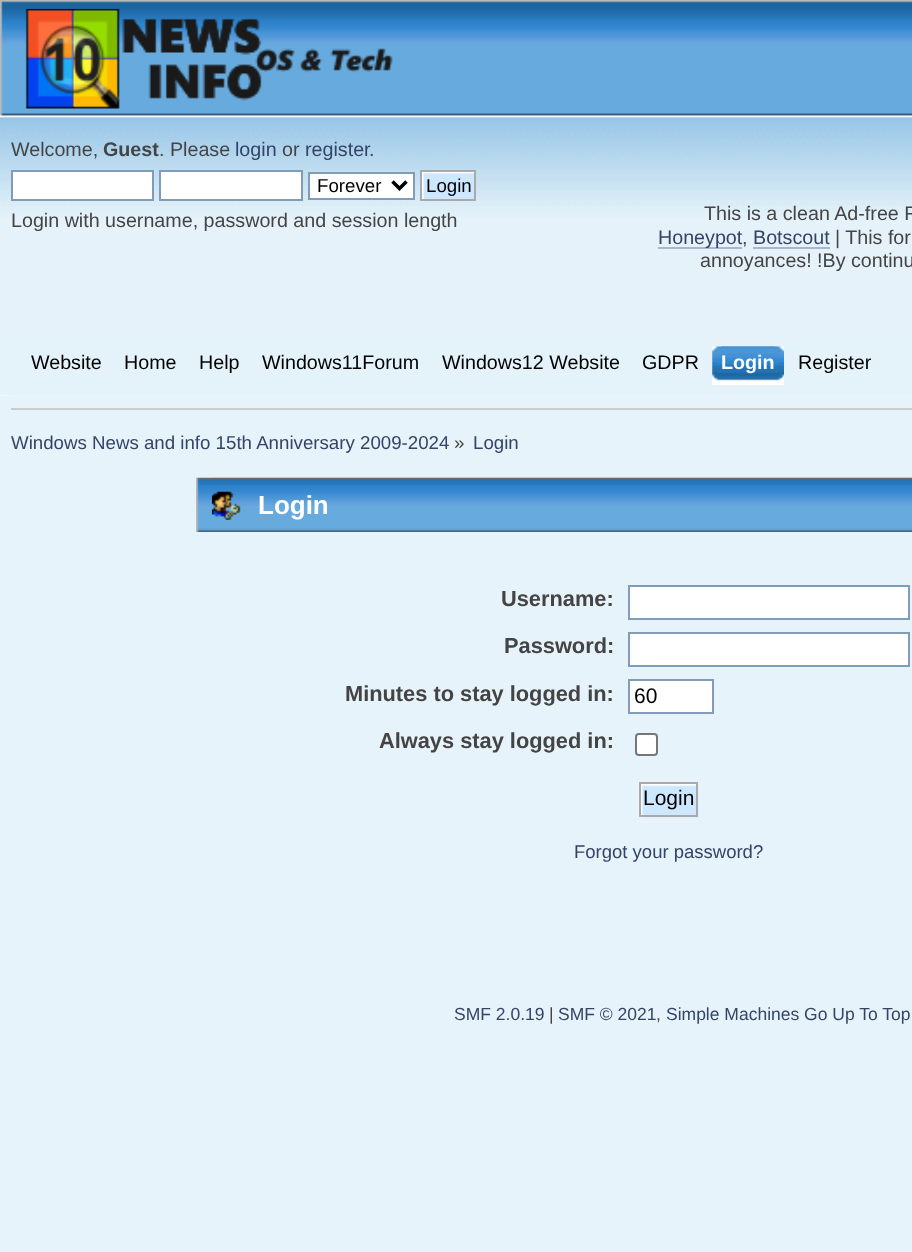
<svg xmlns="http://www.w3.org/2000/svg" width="912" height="1252">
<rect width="100%" height="100%" fill="#e7f3fa"/>
<rect y="395" width="912" height="1" fill="#fefefe"/>
<image x="0" y="0" width="912" height="396" href="media/1.png"/>
<image x="9" y="142" width="903" height="254" href="media/2.png"/>
<image x="25" y="8" width="368" height="101" href="media/3.png"/>
<text x="11" y="156" style="font-family:Liberation Sans;font-size:19.7px;fill:#444">Welcome,</text>
<text x="103" y="156" style="font-family:Liberation Sans;font-size:19.7px;font-weight:bold;fill:#444">Guest</text>
<text x="159" y="156" style="font-family:Liberation Sans;font-size:19.7px;fill:#444">. Please</text>
<text x="235" y="156" style="font-family:Liberation Sans;font-size:19.7px;fill:#346">login</text>
<text x="282" y="156" style="font-family:Liberation Sans;font-size:19.7px;fill:#444">or</text>
<text x="305" y="156" style="font-family:Liberation Sans;font-size:19.7px;fill:#346">register</text>
<text x="369" y="156" style="font-family:Liberation Sans;font-size:19.7px;fill:#444">.</text>
<rect x="12" y="171" width="141" height="29" fill="#fff" stroke="#7f9db9" stroke-width="2"/>
<rect x="160" y="171" width="142" height="29" fill="#fff" stroke="#7f9db9" stroke-width="2"/>
<rect x="309" y="173" width="105" height="26" fill="#fff" stroke="#7f9db9" stroke-width="2"/>
<path d="M392.5 181.5l7 7l7-7" fill="none" stroke="#000" stroke-width="3.5"/>
<text x="317" y="192" style="font-family:Liberation Sans;font-size:18.7px;fill:#000">Forever</text>
<image x="421" y="172" width="55" height="30" href="media/4.png"/>
<rect x="421" y="171" width="54" height="29" fill="none" stroke="#aaa" stroke-width="2"/>
<text x="426" y="192" style="font-family:Liberation Sans;font-size:18.7px;fill:#000">Login</text>
<text x="11" y="227" style="font-family:Liberation Sans;font-size:19.7px;fill:#444">Login with username, password and session length</text>
<text x="704" y="220" style="font-family:Liberation Sans;font-size:19.7px;fill:#444">This is a clean Ad-free F</text>
<rect x="658" y="247" width="84" height="2" fill="#a8b6cf"/>
<text x="658" y="244" style="font-family:Liberation Sans;font-size:19.7px;fill:#346">Honeypot</text>
<text x="742" y="244" style="font-family:Liberation Sans;font-size:19.7px;fill:#444">,</text>
<rect x="753" y="247" width="77" height="2" fill="#a8b6cf"/>
<text x="753" y="244" style="font-family:Liberation Sans;font-size:19.7px;fill:#346">Botscout</text>
<text x="835" y="244" style="font-family:Liberation Sans;font-size:19.7px;fill:#444">| This for</text>
<text x="700" y="267" style="font-family:Liberation Sans;font-size:19.7px;fill:#444">annoyances! !By continu</text>
<text x="31" y="369" style="font-family:Liberation Sans;font-size:19.7px;fill:#000">Website</text>
<text x="124" y="369" style="font-family:Liberation Sans;font-size:19.7px;fill:#000">Home</text>
<text x="199" y="369" style="font-family:Liberation Sans;font-size:19.7px;fill:#000">Help</text>
<text x="262" y="369" style="font-family:Liberation Sans;font-size:19.7px;fill:#000">Windows11Forum</text>
<text x="442" y="369" style="font-family:Liberation Sans;font-size:19.7px;fill:#000">Windows12 Website</text>
<text x="642" y="369" style="font-family:Liberation Sans;font-size:19.7px;fill:#000">GDPR</text>
<image x="721" y="346" width="63" height="39" href="media/5.png"/>
<image x="712" y="346" width="64" height="39" href="media/6.png"/>
<text x="721" y="369" style="font-family:Liberation Sans;font-size:19.7px;font-weight:bold;fill:#fff">Login</text>
<text x="798" y="369" style="font-family:Liberation Sans;font-size:19.7px;fill:#000">Register</text>
<rect x="11" y="408" width="901" height="2" fill="#ccc"/>
<text x="11" y="449" style="font-family:Liberation Sans;font-size:18.7px;fill:#346">Windows News and info 15th Anniversary 2009-2024</text>
<text x="454" y="449" style="font-family:Liberation Sans;font-size:18.7px;fill:#444">»</text>
<text x="473" y="449" style="font-family:Liberation Sans;font-size:18.7px;fill:#346">Login</text>
<image x="196" y="477" width="716" height="55" href="media/7.png"/>
<rect x="212" y="477" width="700" height="1" fill="#c1c9ce"/>
<image x="211" y="491" width="30" height="29" href="media/8.png"/>
<text x="258" y="514" style="font-family:Liberation Sans;font-size:26px;font-weight:bold;fill:#fff">Login</text>
<text x="501" y="606" style="font-family:Liberation Sans;font-size:21.8px;font-weight:bold;fill:#444">Username:</text>
<rect x="629" y="586" width="280" height="33" fill="#fff" stroke="#7f9db9" stroke-width="2"/>
<text x="504" y="653" style="font-family:Liberation Sans;font-size:21.8px;font-weight:bold;fill:#444">Password:</text>
<rect x="629" y="633" width="280" height="33" fill="#fff" stroke="#7f9db9" stroke-width="2"/>
<text x="345" y="701" style="font-family:Liberation Sans;font-size:21.8px;font-weight:bold;fill:#444">Minutes to stay logged in:</text>
<rect x="629" y="680" width="84" height="33" fill="#fff" stroke="#7f9db9" stroke-width="2"/>
<text x="634" y="703" style="font-family:Liberation Sans;font-size:21px;fill:#000">60</text>
<text x="379" y="748" style="font-family:Liberation Sans;font-size:21.8px;font-weight:bold;fill:#444">Always stay logged in:</text>
<rect x="636" y="734" width="21" height="21" rx="3" fill="#fff" stroke="#767676" stroke-width="2"/>
<image x="640" y="784" width="59" height="34" href="media/9.png"/>
<rect x="640" y="783" width="57" height="33" fill="none" stroke="#aaa" stroke-width="2"/>
<text x="643" y="805" style="font-family:Liberation Sans;font-size:21px;fill:#000">Login</text>
<text x="574" y="858" style="font-family:Liberation Sans;font-size:18.5px;fill:#346">Forgot your password?</text>
<text x="454" y="1020" style="font-family:Liberation Sans;font-size:17.5px;fill:#346">SMF 2.0.19</text>
<text x="549" y="1020" style="font-family:Liberation Sans;font-size:17.5px;fill:#444">|</text>
<text x="558" y="1020" style="font-family:Liberation Sans;font-size:17.5px;fill:#346">SMF © 2021</text>
<text x="656" y="1020" style="font-family:Liberation Sans;font-size:17.5px;fill:#444">,</text>
<text x="666" y="1020" style="font-family:Liberation Sans;font-size:17.5px;fill:#346">Simple Machines Go Up To Top</text>
</svg>
